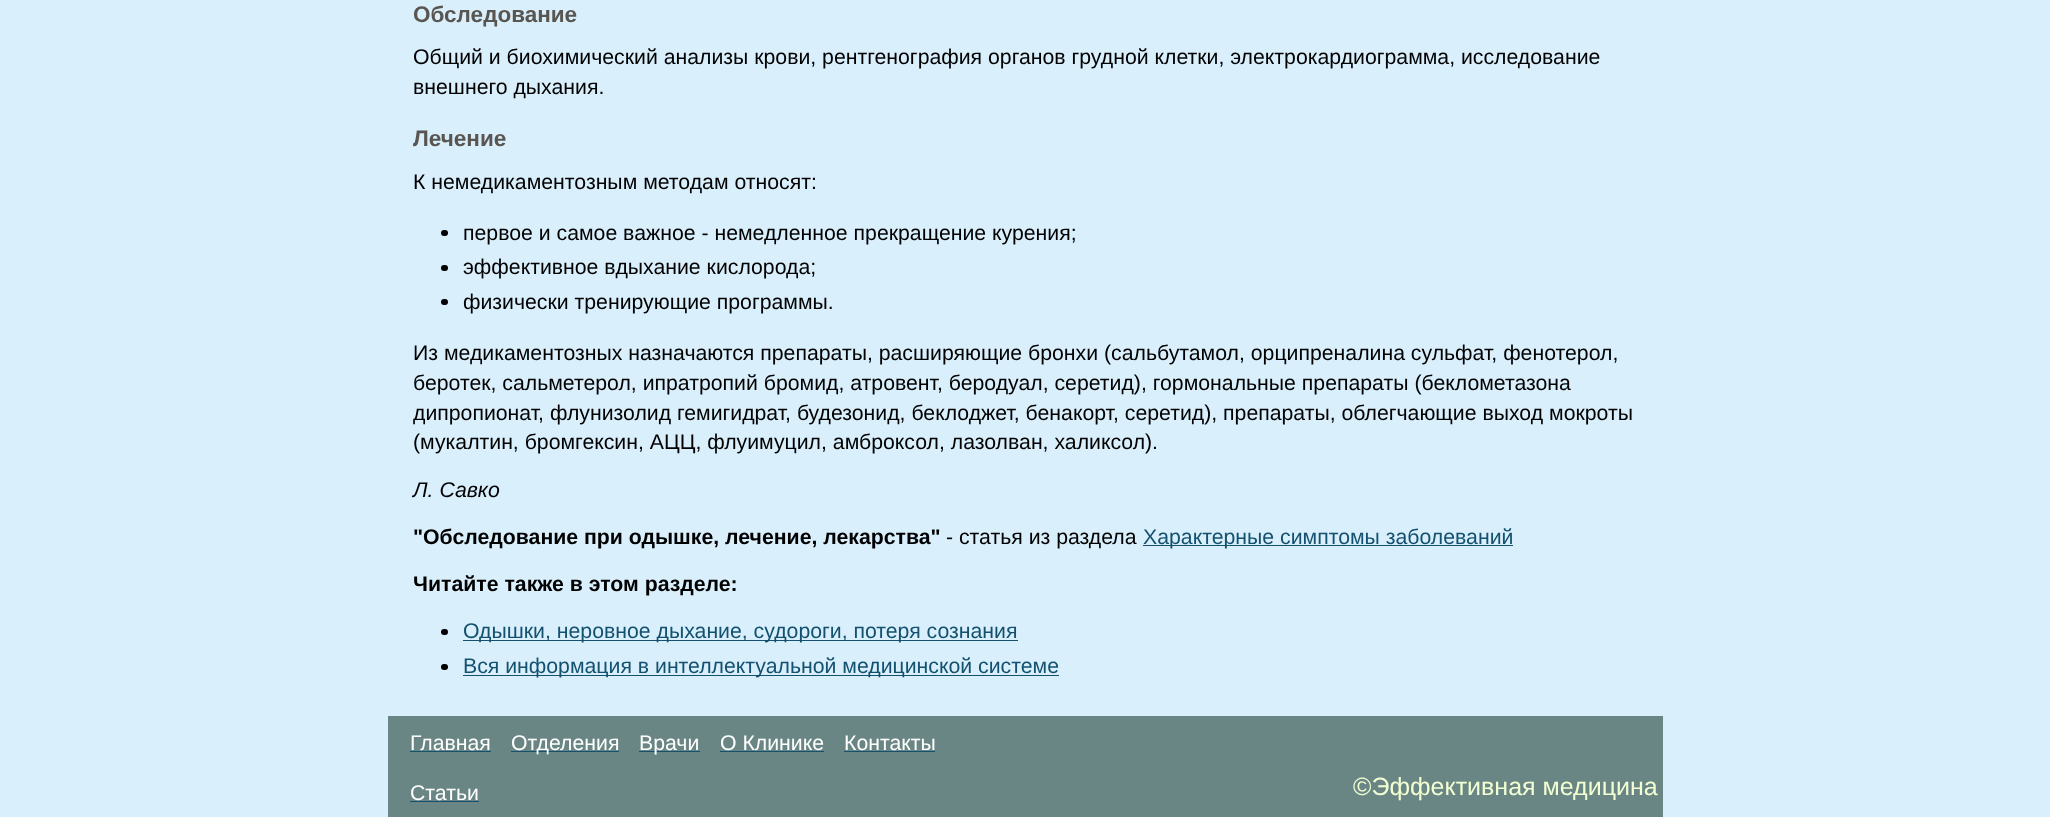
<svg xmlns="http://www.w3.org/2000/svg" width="2050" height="817">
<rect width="100%" height="100%" fill="#d9effc"/>
<text x="413" y="22" style="font-family:Liberation Sans;font-size:22.5px;font-weight:bold;fill:#595651">Обследование</text>
<text x="413" y="64" style="font-family:Liberation Sans;font-size:21.25px;fill:#000">Общий и биохимический анализы крови, рентгенография органов грудной клетки, электрокардиограмма, исследование</text>
<text x="413" y="94" style="font-family:Liberation Sans;font-size:21.25px;fill:#000">внешнего дыхания.</text>
<text x="413" y="146" style="font-family:Liberation Sans;font-size:22.5px;font-weight:bold;fill:#595651">Лечение</text>
<text x="413" y="189" style="font-family:Liberation Sans;font-size:21.25px;fill:#000">К немедикаментозным методам относят:</text>
<rect x="441" y="230" width="7" height="6" rx="3" fill="#000"/>
<text x="463" y="240" style="font-family:Liberation Sans;font-size:21.25px;fill:#000">первое и самое важное - немедленное прекращение курения;</text>
<rect x="441" y="265" width="7" height="6" rx="3" fill="#000"/>
<text x="463" y="274" style="font-family:Liberation Sans;font-size:21.25px;fill:#000">эффективное вдыхание кислорода;</text>
<rect x="441" y="299" width="7" height="6" rx="3" fill="#000"/>
<text x="463" y="309" style="font-family:Liberation Sans;font-size:21.25px;fill:#000">физически тренирующие программы.</text>
<text x="413" y="360" style="font-family:Liberation Sans;font-size:21.25px;fill:#000">Из медикаментозных назначаются препараты, расширяющие бронхи (сальбутамол, орципреналина сульфат, фенотерол,</text>
<text x="413" y="390" style="font-family:Liberation Sans;font-size:21.25px;fill:#000">беротек, сальметерол, ипратропий бромид, атровент, беродуал, серетид), гормональные препараты (беклометазона</text>
<text x="413" y="420" style="font-family:Liberation Sans;font-size:21.25px;fill:#000">дипропионат, флунизолид гемигидрат, будезонид, беклоджет, бенакорт, серетид), препараты, облегчающие выход мокроты</text>
<text x="413" y="449" style="font-family:Liberation Sans;font-size:21.25px;fill:#000">(мукалтин, бромгексин, АЦЦ, флуимуцил, амброксол, лазолван, халиксол).</text>
<text x="413" y="497" style="font-family:Liberation Sans;font-size:21.25px;font-style:italic;fill:#000">Л. Савко</text>
<text x="413" y="544" style="font-family:Liberation Sans;font-size:21.25px;font-weight:bold;fill:#000">"Обследование при одышке, лечение, лекарства"</text>
<text x="946" y="544" style="font-family:Liberation Sans;font-size:21.25px;fill:#000">- статья из раздела</text>
<rect x="1143" y="545" width="370" height="1" fill="#13516f"/>
<text x="1143" y="544" style="font-family:Liberation Sans;font-size:21.25px;fill:#13516f">Характерные симптомы заболеваний</text>
<text x="413" y="591" style="font-family:Liberation Sans;font-size:21.25px;font-weight:bold;fill:#000">Читайте также в этом разделе:</text>
<rect x="441" y="629" width="7" height="6" rx="3" fill="#000"/>
<rect x="463" y="640" width="555" height="1" fill="#13516f"/>
<text x="463" y="638" style="font-family:Liberation Sans;font-size:21.25px;fill:#13516f">Одышки, неровное дыхание, судороги, потеря сознания</text>
<rect x="441" y="664" width="7" height="6" rx="3" fill="#000"/>
<rect x="463" y="675" width="596" height="1" fill="#13516f"/>
<text x="463" y="673" style="font-family:Liberation Sans;font-size:21.25px;fill:#13516f">Вся информация в интеллектуальной медицинской системе</text>
<rect x="388" y="716" width="1275" height="101" fill="#698684"/>
<text x="410" y="750" style="font-family:Liberation Sans;font-size:21.25px;fill:#fff">Главная</text>
<rect x="410" y="751" width="81" height="1" fill="#13516f"/>
<rect x="511" y="751" width="108" height="1" fill="#13516f"/>
<text x="511" y="750" style="font-family:Liberation Sans;font-size:21.25px;fill:#fff">Отделения</text>
<rect x="639" y="751" width="61" height="1" fill="#13516f"/>
<text x="639" y="750" style="font-family:Liberation Sans;font-size:21.25px;fill:#fff">Врачи</text>
<text x="720" y="750" style="font-family:Liberation Sans;font-size:21.25px;fill:#fff">О Клинике</text>
<rect x="720" y="751" width="104" height="1" fill="#13516f"/>
<text x="844" y="750" style="font-family:Liberation Sans;font-size:21.25px;fill:#fff">Контакты</text>
<rect x="844" y="751" width="91" height="1" fill="#13516f"/>
<text x="410" y="800" style="font-family:Liberation Sans;font-size:21.25px;fill:#fff">Статьи</text>
<rect x="410" y="801" width="69" height="1" fill="#13516f"/>
<text x="1353" y="795" style="font-family:Liberation Sans;font-size:25px;fill:#f2ffd2">©Эффективная медицина</text>
</svg>
